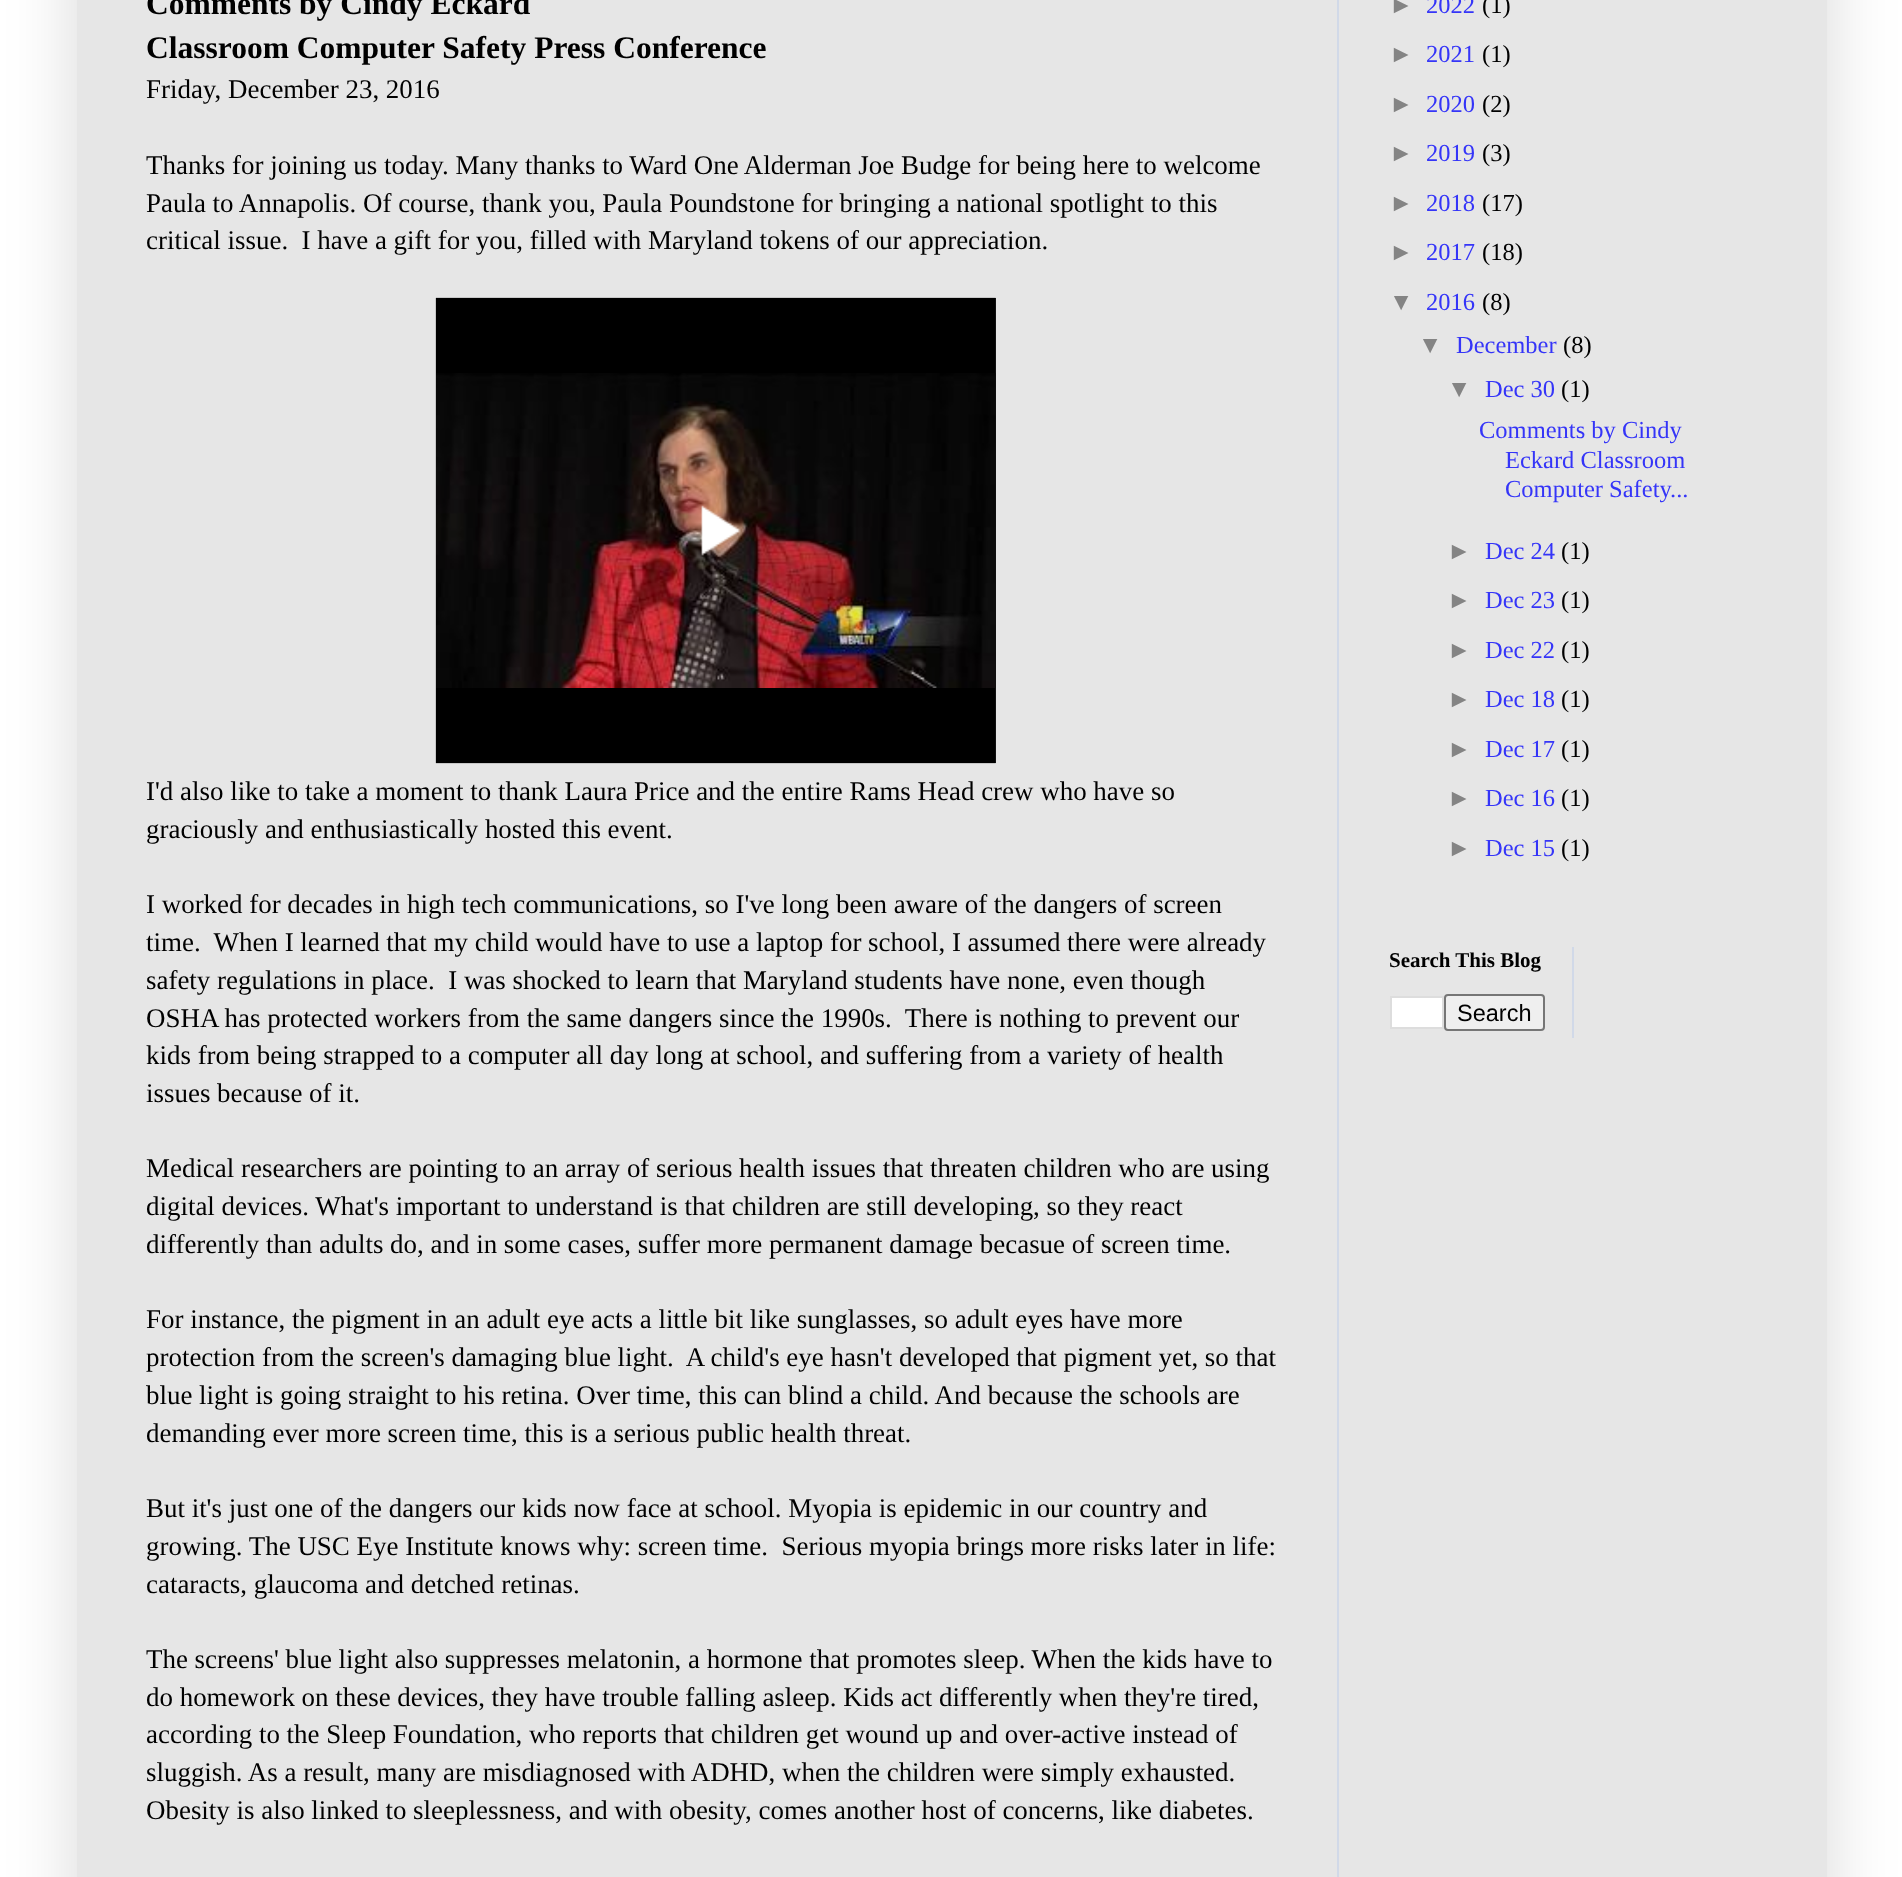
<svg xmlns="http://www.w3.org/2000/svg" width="1902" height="1877">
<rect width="100%" height="100%" fill="#fff"/>
<rect x="77" y="-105" width="1750" height="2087" fill="#00000026" filter="blur(35px)"/>
<rect x="77" width="1750" height="1877" fill="#e6e6e6"/>
<text x="146" y="14" style="font-family:Liberation Serif;font-size:31.5px;font-weight:bold;fill:#000">Comments by Cindy Eckard</text>
<text x="146" y="58" style="font-family:Liberation Serif;font-size:31.5px;font-weight:bold;fill:#000">Classroom Computer Safety Press Conference</text>
<text x="146" y="98" style="font-family:Liberation Serif;font-size:26.95px;fill:#000">Friday, December 23, 2016</text>
<text x="146" y="174" style="font-family:Liberation Serif;font-size:26.95px;fill:#000">Thanks for joining us today. Many thanks to Ward One Alderman Joe Budge for being here to welcome</text>
<text x="146" y="212" style="font-family:Liberation Serif;font-size:26.95px;fill:#000">Paula to Annapolis. Of course, thank you, Paula Poundstone for bringing a national spotlight to this</text>
<text x="146" y="249" style="font-family:Liberation Serif;font-size:26.95px;fill:#000" xml:space="preserve">critical issue.  I have a gift for you, filled with Maryland tokens of our appreciation.</text>
<image x="435" y="297" width="561" height="467" href="media/1.png"/>
<text x="146" y="800" style="font-family:Liberation Serif;font-size:26.95px;fill:#000">I'd also like to take a moment to thank Laura Price and the entire Rams Head crew who have so</text>
<text x="146" y="838" style="font-family:Liberation Serif;font-size:26.95px;fill:#000">graciously and enthusiastically hosted this event.</text>
<text x="146" y="913" style="font-family:Liberation Serif;font-size:26.95px;fill:#000">I worked for decades in high tech communications, so I've long been aware of the dangers of screen</text>
<text x="146" y="951" style="font-family:Liberation Serif;font-size:26.95px;fill:#000" xml:space="preserve">time.  When I learned that my child would have to use a laptop for school, I assumed there were already</text>
<text x="146" y="989" style="font-family:Liberation Serif;font-size:26.95px;fill:#000" xml:space="preserve">safety regulations in place.  I was shocked to learn that Maryland students have none, even though</text>
<text x="146" y="1027" style="font-family:Liberation Serif;font-size:26.95px;fill:#000" xml:space="preserve">OSHA has protected workers from the same dangers since the 1990s.  There is nothing to prevent our</text>
<text x="146" y="1064" style="font-family:Liberation Serif;font-size:26.95px;fill:#000">kids from being strapped to a computer all day long at school, and suffering from a variety of health</text>
<text x="146" y="1102" style="font-family:Liberation Serif;font-size:26.95px;fill:#000">issues because of it.</text>
<text x="146" y="1177" style="font-family:Liberation Serif;font-size:26.95px;fill:#000">Medical researchers are pointing to an array of serious health issues that threaten children who are using</text>
<text x="146" y="1215" style="font-family:Liberation Serif;font-size:26.95px;fill:#000">digital devices. What's important to understand is that children are still developing, so they react</text>
<text x="146" y="1253" style="font-family:Liberation Serif;font-size:26.95px;fill:#000">differently than adults do, and in some cases, suffer more permanent damage becasue of screen time.</text>
<text x="146" y="1328" style="font-family:Liberation Serif;font-size:26.95px;fill:#000">For instance, the pigment in an adult eye acts a little bit like sunglasses, so adult eyes have more</text>
<text x="146" y="1366" style="font-family:Liberation Serif;font-size:26.95px;fill:#000" xml:space="preserve">protection from the screen's damaging blue light.  A child's eye hasn't developed that pigment yet, so that</text>
<text x="146" y="1404" style="font-family:Liberation Serif;font-size:26.95px;fill:#000">blue light is going straight to his retina. Over time, this can blind a child. And because the schools are</text>
<text x="146" y="1442" style="font-family:Liberation Serif;font-size:26.95px;fill:#000">demanding ever more screen time, this is a serious public health threat.</text>
<text x="146" y="1517" style="font-family:Liberation Serif;font-size:26.95px;fill:#000">But it's just one of the dangers our kids now face at school. Myopia is epidemic in our country and</text>
<text x="146" y="1555" style="font-family:Liberation Serif;font-size:26.95px;fill:#000" xml:space="preserve">growing. The USC Eye Institute knows why: screen time.  Serious myopia brings more risks later in life:</text>
<text x="146" y="1593" style="font-family:Liberation Serif;font-size:26.95px;fill:#000">cataracts, glaucoma and detched retinas.</text>
<text x="146" y="1668" style="font-family:Liberation Serif;font-size:26.95px;fill:#000">The screens' blue light also suppresses melatonin, a hormone that promotes sleep. When the kids have to</text>
<text x="146" y="1706" style="font-family:Liberation Serif;font-size:26.95px;fill:#000">do homework on these devices, they have trouble falling asleep. Kids act differently when they're tired,</text>
<text x="146" y="1743" style="font-family:Liberation Serif;font-size:26.95px;fill:#000">according to the Sleep Foundation, who reports that children get wound up and over-active instead of</text>
<text x="146" y="1781" style="font-family:Liberation Serif;font-size:26.95px;fill:#000">sluggish. As a result, many are misdiagnosed with ADHD, when the children were simply exhausted.</text>
<text x="146" y="1819" style="font-family:Liberation Serif;font-size:26.95px;fill:#000">Obesity is also linked to sleeplessness, and with obesity, comes another host of concerns, like diabetes.</text>
<text x="1389" y="13" style="font-family:Liberation Sans;font-size:24.5px;fill:#848484">►</text>
<text x="1426" y="13" style="font-family:Liberation Serif;font-size:24.5px;fill:#3535f8">2022</text>
<text x="1482" y="13" style="font-family:Liberation Serif;font-size:24.5px;fill:#000">(1)</text>
<text x="1389" y="62" style="font-family:Liberation Sans;font-size:24.5px;fill:#848484">►</text>
<text x="1426" y="62" style="font-family:Liberation Serif;font-size:24.5px;fill:#3535f8">2021</text>
<text x="1482" y="62" style="font-family:Liberation Serif;font-size:24.5px;fill:#000">(1)</text>
<text x="1389" y="112" style="font-family:Liberation Sans;font-size:24.5px;fill:#848484">►</text>
<text x="1426" y="112" style="font-family:Liberation Serif;font-size:24.5px;fill:#3535f8">2020</text>
<text x="1482" y="112" style="font-family:Liberation Serif;font-size:24.5px;fill:#000">(2)</text>
<text x="1389" y="161" style="font-family:Liberation Sans;font-size:24.5px;fill:#848484">►</text>
<text x="1426" y="161" style="font-family:Liberation Serif;font-size:24.5px;fill:#3535f8">2019</text>
<text x="1482" y="161" style="font-family:Liberation Serif;font-size:24.5px;fill:#000">(3)</text>
<text x="1389" y="211" style="font-family:Liberation Sans;font-size:24.5px;fill:#848484">►</text>
<text x="1426" y="211" style="font-family:Liberation Serif;font-size:24.5px;fill:#3535f8">2018</text>
<text x="1482" y="211" style="font-family:Liberation Serif;font-size:24.5px;fill:#000">(17)</text>
<text x="1389" y="260" style="font-family:Liberation Sans;font-size:24.5px;fill:#848484">►</text>
<text x="1426" y="260" style="font-family:Liberation Serif;font-size:24.5px;fill:#3535f8">2017</text>
<text x="1482" y="260" style="font-family:Liberation Serif;font-size:24.5px;fill:#000">(18)</text>
<text x="1389" y="310" style="font-family:Liberation Sans;font-size:24.5px;fill:#848484">▼</text>
<text x="1426" y="310" style="font-family:Liberation Serif;font-size:24.5px;fill:#3535f8">2016</text>
<text x="1482" y="310" style="font-family:Liberation Serif;font-size:24.5px;fill:#000">(8)</text>
<text x="1418" y="353" style="font-family:Liberation Sans;font-size:24.5px;fill:#848484">▼</text>
<text x="1456" y="353" style="font-family:Liberation Serif;font-size:24.5px;fill:#3535f8">December</text>
<text x="1563" y="353" style="font-family:Liberation Serif;font-size:24.5px;fill:#000">(8)</text>
<text x="1447" y="397" style="font-family:Liberation Sans;font-size:24.5px;fill:#848484">▼</text>
<text x="1485" y="397" style="font-family:Liberation Serif;font-size:24.5px;fill:#3535f8">Dec 30</text>
<text x="1561" y="397" style="font-family:Liberation Serif;font-size:24.5px;fill:#000">(1)</text>
<text x="1479" y="438" style="font-family:Liberation Serif;font-size:24.5px;fill:#3535f8">Comments by Cindy</text>
<text x="1505" y="468" style="font-family:Liberation Serif;font-size:24.5px;fill:#3535f8">Eckard Classroom</text>
<text x="1505" y="497" style="font-family:Liberation Serif;font-size:24.5px;fill:#3535f8">Computer Safety...</text>
<text x="1447" y="559" style="font-family:Liberation Sans;font-size:24.5px;fill:#848484">►</text>
<text x="1485" y="559" style="font-family:Liberation Serif;font-size:24.5px;fill:#3535f8">Dec 24</text>
<text x="1561" y="559" style="font-family:Liberation Serif;font-size:24.5px;fill:#000">(1)</text>
<text x="1447" y="608" style="font-family:Liberation Sans;font-size:24.5px;fill:#848484">►</text>
<text x="1485" y="608" style="font-family:Liberation Serif;font-size:24.5px;fill:#3535f8">Dec 23</text>
<text x="1561" y="608" style="font-family:Liberation Serif;font-size:24.5px;fill:#000">(1)</text>
<text x="1447" y="658" style="font-family:Liberation Sans;font-size:24.5px;fill:#848484">►</text>
<text x="1485" y="658" style="font-family:Liberation Serif;font-size:24.5px;fill:#3535f8">Dec 22</text>
<text x="1561" y="658" style="font-family:Liberation Serif;font-size:24.5px;fill:#000">(1)</text>
<text x="1447" y="707" style="font-family:Liberation Sans;font-size:24.5px;fill:#848484">►</text>
<text x="1485" y="707" style="font-family:Liberation Serif;font-size:24.5px;fill:#3535f8">Dec 18</text>
<text x="1561" y="707" style="font-family:Liberation Serif;font-size:24.5px;fill:#000">(1)</text>
<text x="1447" y="757" style="font-family:Liberation Sans;font-size:24.5px;fill:#848484">►</text>
<text x="1485" y="757" style="font-family:Liberation Serif;font-size:24.5px;fill:#3535f8">Dec 17</text>
<text x="1561" y="757" style="font-family:Liberation Serif;font-size:24.5px;fill:#000">(1)</text>
<text x="1447" y="806" style="font-family:Liberation Sans;font-size:24.5px;fill:#848484">►</text>
<text x="1485" y="806" style="font-family:Liberation Serif;font-size:24.5px;fill:#3535f8">Dec 16</text>
<text x="1561" y="806" style="font-family:Liberation Serif;font-size:24.5px;fill:#000">(1)</text>
<text x="1447" y="856" style="font-family:Liberation Sans;font-size:24.5px;fill:#848484">►</text>
<text x="1485" y="856" style="font-family:Liberation Serif;font-size:24.5px;fill:#3535f8">Dec 15</text>
<text x="1561" y="856" style="font-family:Liberation Serif;font-size:24.5px;fill:#000">(1)</text>
<text x="1389" y="967" style="font-family:Liberation Serif;font-size:21px;font-weight:bold;fill:#000">Search This Blog</text>
<rect x="1391" y="997" width="52" height="31" fill="#fff" stroke="#ddd" stroke-width="2"/>
<rect x="1445" y="995" width="99" height="35" rx="3" fill="#efefef" stroke="#767676" stroke-width="2"/>
<text x="1457" y="1021" style="font-family:Liberation Sans;font-size:23.5px;fill:#000">Search</text>
<rect x="1572" y="947" width="2" height="91" fill="#d1d9e8"/>
<rect x="1337" width="2" height="1877" fill="#d1d9e8"/>
</svg>
